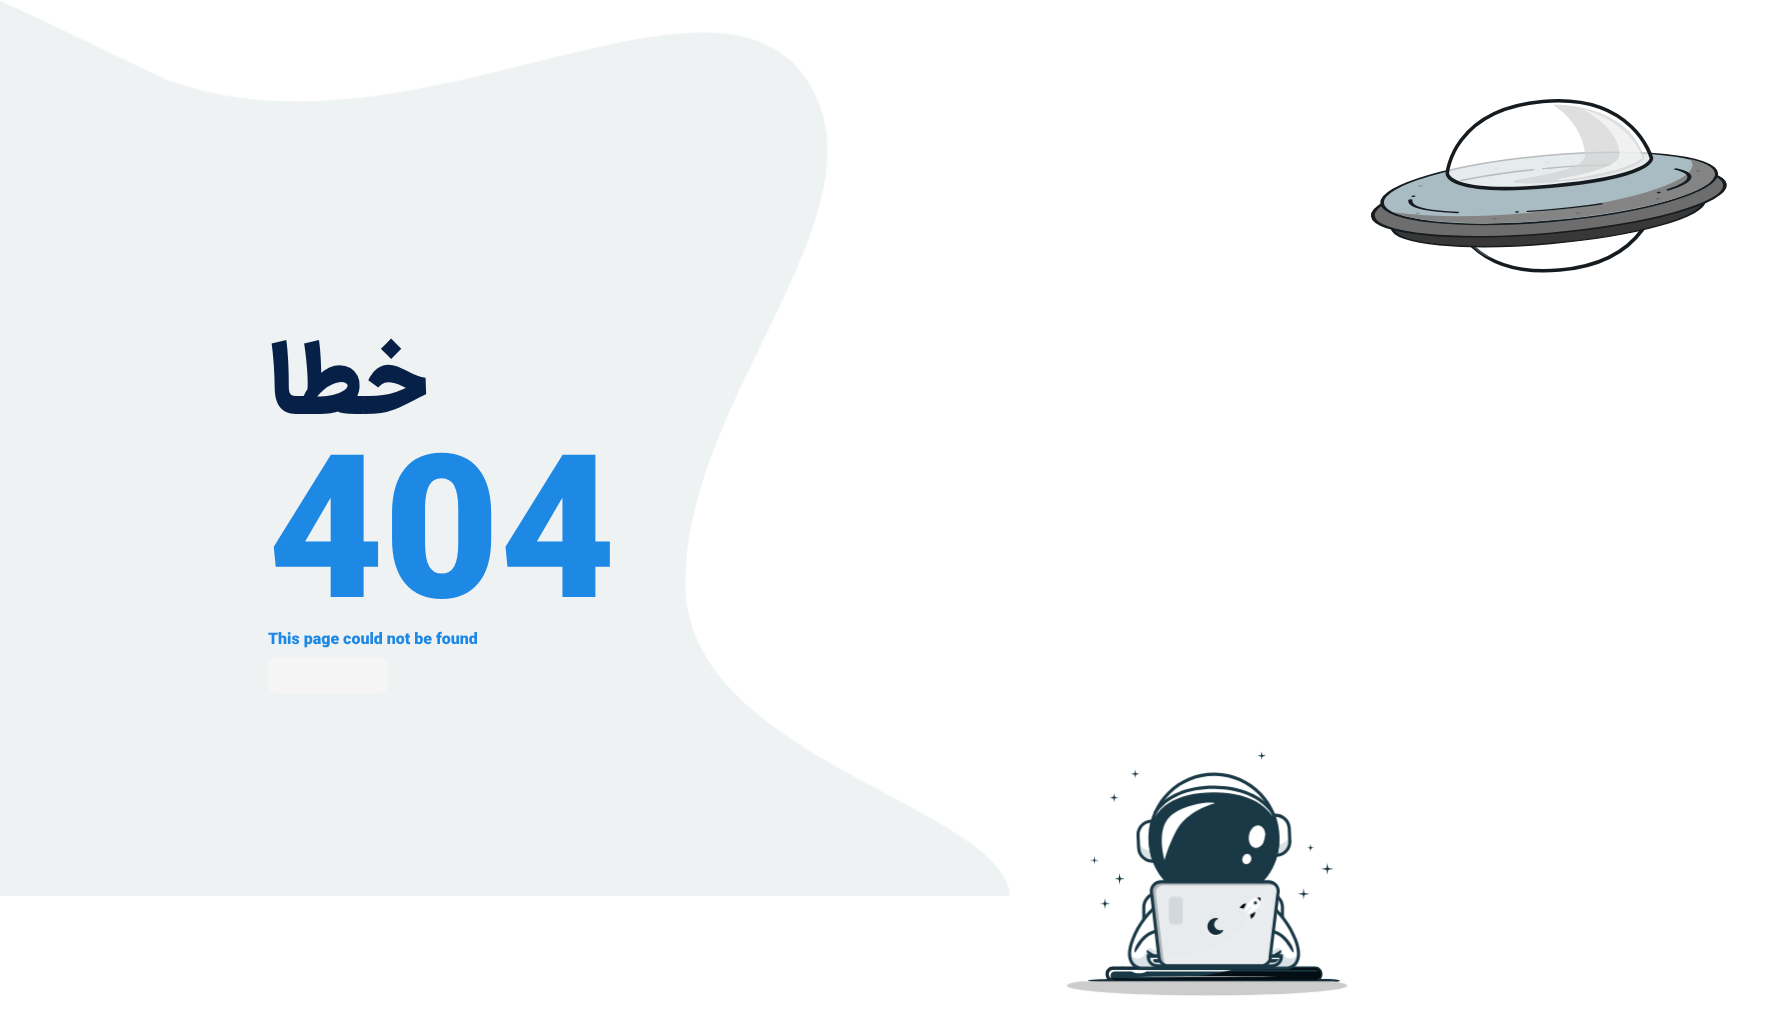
<svg xmlns="http://www.w3.org/2000/svg" width="1768" height="1034">
<rect width="100%" height="100%" fill="#fff"/>
<image x="0" y="1" width="1010" height="895" href="media/1.png"/>
<text x="429" y="414" style="font-family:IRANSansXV;font-size:96px;font-weight:900;direction:rtl;fill:#072047">خطا</text>
<text x="268" y="597" style="font-family:Roboto;font-size:200px;font-weight:900;fill:#1e88e5">404</text>
<text x="268" y="644" style="font-family:Roboto;font-size:16px;font-weight:900;fill:#1e88e5">This page could not be found</text>
<rect x="268" y="657" width="120" height="36" rx="8" fill="#f5f5f5"/>
<image x="1371" y="99" width="356" height="174" href="media/2.png"/>
<image x="1066" y="751" width="282" height="245" href="media/3.png"/>
</svg>
